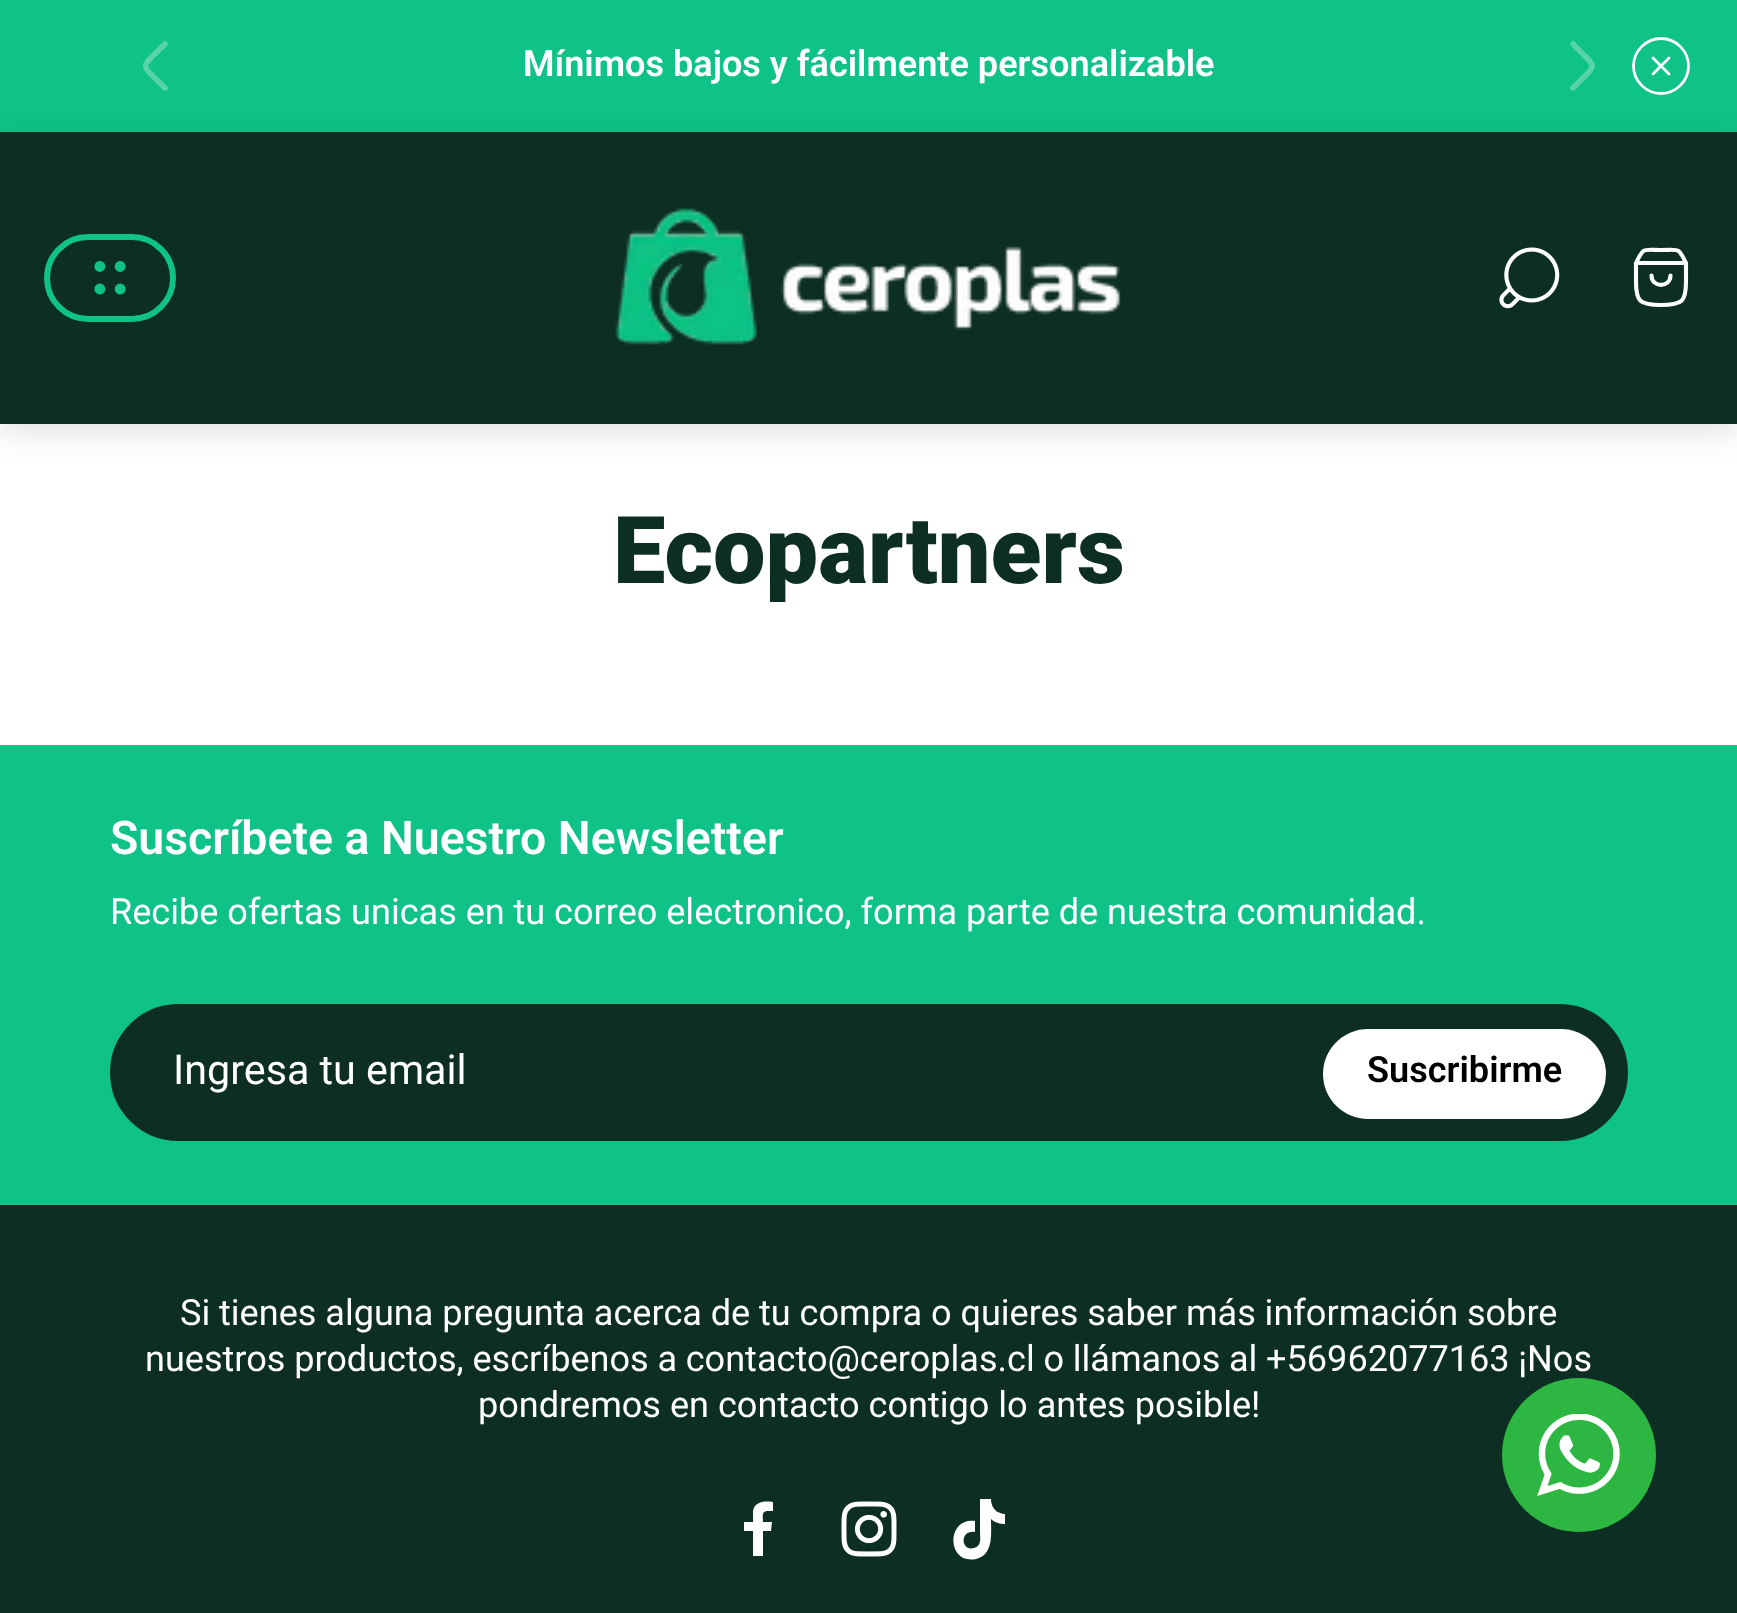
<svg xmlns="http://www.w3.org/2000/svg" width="1737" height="1613">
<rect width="100%" height="100%" fill="#fff"/>
<rect width="1737" height="132" fill="#0fc287"/>
<path d="M165 88c-26-26-26-18 0-44" fill="none" stroke="#57d4ab" stroke-width="5.5" stroke-linecap="round" stroke-linejoin="round"/>
<text x="523" y="76" style="font-family:Roboto;font-size:36.1px;font-weight:600;fill:#fff">Mínimos bajos y fácilmente personalizable</text>
<path d="M1573 88c25.5-26 25.5-18 0-44" fill="none" stroke="#57d4ab" stroke-width="5.5" stroke-linecap="round" stroke-linejoin="round"/>
<path d="M1661 93.5c15 0 27.5-12.5 27.5-27.5c0-15-12.5-27.5-27.5-27.5c-15 0-27.5 12.5-27.5 27.5c0 15 12.5 27.5 27.5 27.5zm-8-19.5l16-16m0 16l-16-16" fill="none" stroke="#fff" stroke-width="2.8" stroke-linecap="round" stroke-linejoin="round"/>
<rect y="143" width="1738" height="292" fill="#0000001a" filter="blur(15px)"/>
<rect y="132" width="1737" height="292" fill="#0d2e23"/>
<rect x="47" y="237" width="126" height="82" rx="41" fill="none" stroke="#0fc287" stroke-width="6"/>
<image x="94" y="261" width="32" height="34" href="media/1.png"/>
<image x="615" y="208" width="506" height="137" href="media/2.png"/>
<image x="1499" y="247" width="61" height="62" href="media/3.png"/>
<path d="M1670.5 275.5c0 12.5-19 12.5-19 0m-15.5-12.5h50m-50 0v18.5c0 20 3.5 23.5 25 23.5c21.5 0 25-3.5 25-23.5v-18.5m-50 0c8-16 6-13 25-13c19 0 17-3 25 13" fill="none" stroke="#fff" stroke-width="4.1" stroke-linecap="round" stroke-linejoin="round"/>
<text x="613" y="583" style="font-family:Roboto;font-size:93.5px;font-weight:900;fill:#0d2e23">Ecopartners</text>
<rect y="1205" width="1737" height="408" fill="#0d2e23"/>
<rect y="745" width="1737" height="460" fill="#0fc287"/>
<text x="110" y="854" style="font-family:Roboto;font-size:46.4px;font-weight:600;fill:#fff">Suscríbete a Nuestro Newsletter</text>
<text x="110" y="924" word-spacing="-0.1" style="font-family:Roboto;font-size:36.1px;fill:#fff">Recibe ofertas unicas en tu correo electronico, forma parte de nuestra comunidad.</text>
<rect x="111.5" y="1005.5" width="1515" height="134" rx="67" fill="#0d2e23" stroke="#0d2e23" stroke-width="3"/>
<text x="173" y="1084" style="font-family:Roboto;font-size:41.25px;fill:#fff">Ingresa tu email</text>
<rect x="1323" y="1029" width="283" height="90" rx="45" fill="#fff"/>
<text x="1367" y="1082" style="font-family:Roboto;font-size:36.1px;font-weight:600;fill:#000">Suscribirme</text>
<text x="180" y="1325" word-spacing="-0.1" style="font-family:Roboto;font-size:36.1px;fill:#fff">Si tienes alguna pregunta acerca de tu compra o quieres saber más información sobre</text>
<text x="145" y="1371" word-spacing="-0.25" style="font-family:Roboto;font-size:36.1px;fill:#fff">nuestros productos, escríbenos a contacto@ceroplas.cl o llámanos al +56962077163 ¡Nos</text>
<text x="478" y="1417" style="font-family:Roboto;font-size:36.1px;fill:#fff">pondremos en contacto contigo lo antes posible!</text>
<path d="M768 1511h5v-9c-9-1-18-1-20 9v11h-9v9h9v25h10v-25h8l1-9h-9c0-5-2-11 5-11z" fill="#fff"/>
<image x="841" y="1501" width="56" height="56" href="media/4.png"/>
<path d="M991 1499c0 1 0 14 14 15v10c-1 0-9 0-14-5c0 14 3 36-15 40c-30 6-30-42-1-38v11c-16-2-14 20-1 16c8-2 6-10 6-16v-33z" fill="#fff" fill-rule="evenodd"/>
<circle cx="1579" cy="1455" r="77" fill="#2db742"/>
<image x="1537" y="1414" width="83" height="82" href="media/5.png"/>
</svg>
